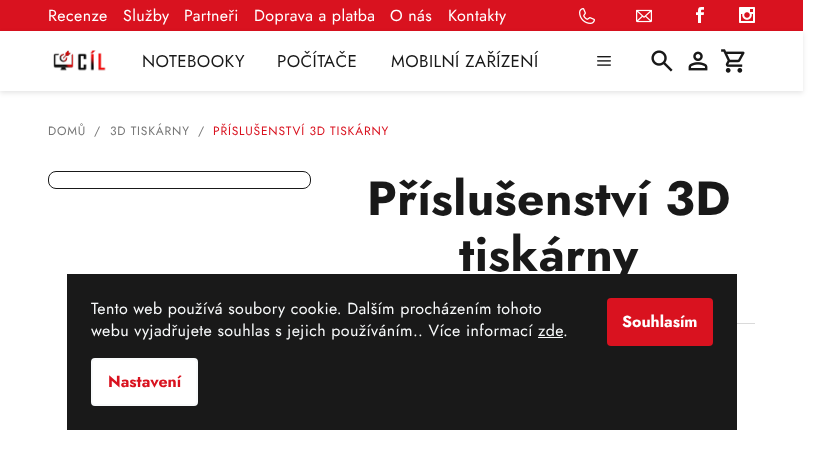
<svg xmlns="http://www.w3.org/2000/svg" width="818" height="450">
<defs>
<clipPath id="clip1"><path d="M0 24h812v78h-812zm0 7h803v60h-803z" clip-rule="evenodd"/></clipPath>
</defs>
<rect width="100%" height="100%" fill="#fff"/>
<rect width="803" height="31" fill="#d9121f"/>
<text x="48" y="21" style="font-family:Jost;font-size:16px;letter-spacing:0.4px;fill:#fff">Recenze</text>
<text x="123" y="21" style="font-family:Jost;font-size:16px;letter-spacing:0.4px;fill:#fff">Služby</text>
<text x="184" y="21" style="font-family:Jost;font-size:16px;letter-spacing:0.4px;fill:#fff">Partneři</text>
<text x="254" y="21" style="font-family:Jost;font-size:16px;letter-spacing:0.4px;fill:#fff">Doprava a platba</text>
<text x="390" y="21" style="font-family:Jost;font-size:16px;letter-spacing:0.4px;fill:#fff">O nás</text>
<text x="448" y="21" style="font-family:Jost;font-size:16px;letter-spacing:0.4px;fill:#fff">Kontakty</text>
<image x="579" y="8" width="16" height="16" href="media/1.png"/>
<image x="636" y="9" width="16" height="14" href="media/2.png"/>
<image x="696" y="7" width="8" height="16" href="media/3.png"/>
<image x="739" y="7" width="16" height="16" href="media/4.png"/>
<g clip-path="url(#clip1)">
<rect y="33" width="803" height="60" fill="#0000001a" filter="blur(2.5px)"/>
</g>
<image x="53" y="50" width="53" height="21" href="media/5.png"/>
<text x="142" y="67" style="font-family:Jost;font-size:17px;letter-spacing:0.4px;fill:#191919">NOTEBOOKY</text>
<text x="277" y="67" style="font-family:Jost;font-size:17px;letter-spacing:0.4px;fill:#191919">POČÍTAČE</text>
<text x="391" y="67" style="font-family:Jost;font-size:17px;letter-spacing:0.4px;fill:#191919">MOBILNÍ ZAŘÍZENÍ</text>
<image x="597" y="56" width="14" height="10" href="media/6.png"/>
<image x="651" y="50" width="22" height="22" href="media/7.png"/>
<image x="651" y="50" width="22" height="22" href="media/8.png"/>
<image x="688" y="51" width="20" height="20" href="media/9.png"/>
<image x="688" y="51" width="20" height="20" href="media/10.png"/>
<image x="721" y="49" width="24" height="24" href="media/11.png"/>
<image x="721" y="49" width="24" height="24" href="media/12.png"/>
<text x="48" y="135" style="font-family:Jost;font-size:12px;letter-spacing:0.8px;fill:#767676">DOMŮ</text>
<text x="94" y="135" style="font-family:Jost;font-size:12px;letter-spacing:0.8px;fill:#767676">/</text>
<text x="110" y="135" style="font-family:Jost;font-size:12px;letter-spacing:0.8px;fill:#767676">3D TISKÁRNY</text>
<text x="198" y="135" style="font-family:Jost;font-size:12px;letter-spacing:0.8px;fill:#767676">/</text>
<text x="213" y="135" style="font-family:Jost;font-size:12px;letter-spacing:0.8px;fill:#d9121f">PŘÍSLUŠENSTVÍ 3D TISKÁRNY</text>
<rect x="48.5" y="171.5" width="262" height="17" rx="7.5" fill="none" stroke="#191919"/>
<rect x="737" y="323" width="18" height="1" fill="#dadada"/>
<text x="367" y="215" style="font-family:Jost;font-size:48px;font-weight:bold;letter-spacing:0.4px;fill:#191919">Příslušenství 3D</text>
<text x="459" y="271" style="font-family:Jost;font-size:48px;font-weight:bold;letter-spacing:0.4px;fill:#191919">tiskárny</text>
<rect x="67" y="274" width="670" height="156" fill="#191919"/>
<text x="91" y="314" style="font-family:Jost;font-size:16px;letter-spacing:0.4px;fill:#f8fafb">Tento web používá soubory cookie. Dalším procházením tohoto</text>
<text x="91" y="336" style="font-family:Jost;font-size:16px;letter-spacing:0.4px;fill:#f8fafb">webu vyjadřujete souhlas s jejich používáním.. Více informací zde</text>
<text x="563" y="336" style="font-family:Jost;font-size:16px;letter-spacing:0.4px;fill:#f8fafb">.</text>
<rect x="538" y="337" width="25" height="1" fill="#f8fafb"/>
<rect x="92" y="359" width="105" height="46" rx="3" fill="#fff" stroke="#f8fafb" stroke-width="2"/>
<text x="108" y="387" style="font-family:Jost;font-size:16px;font-weight:bold;fill:#d9121f">Nastavení</text>
<rect x="607" y="298" width="106" height="48" rx="4" fill="#d9121f"/>
<text x="622" y="327" style="font-family:Jost;font-size:16px;font-weight:bold;fill:#fff">Souhlasím</text>
</svg>
